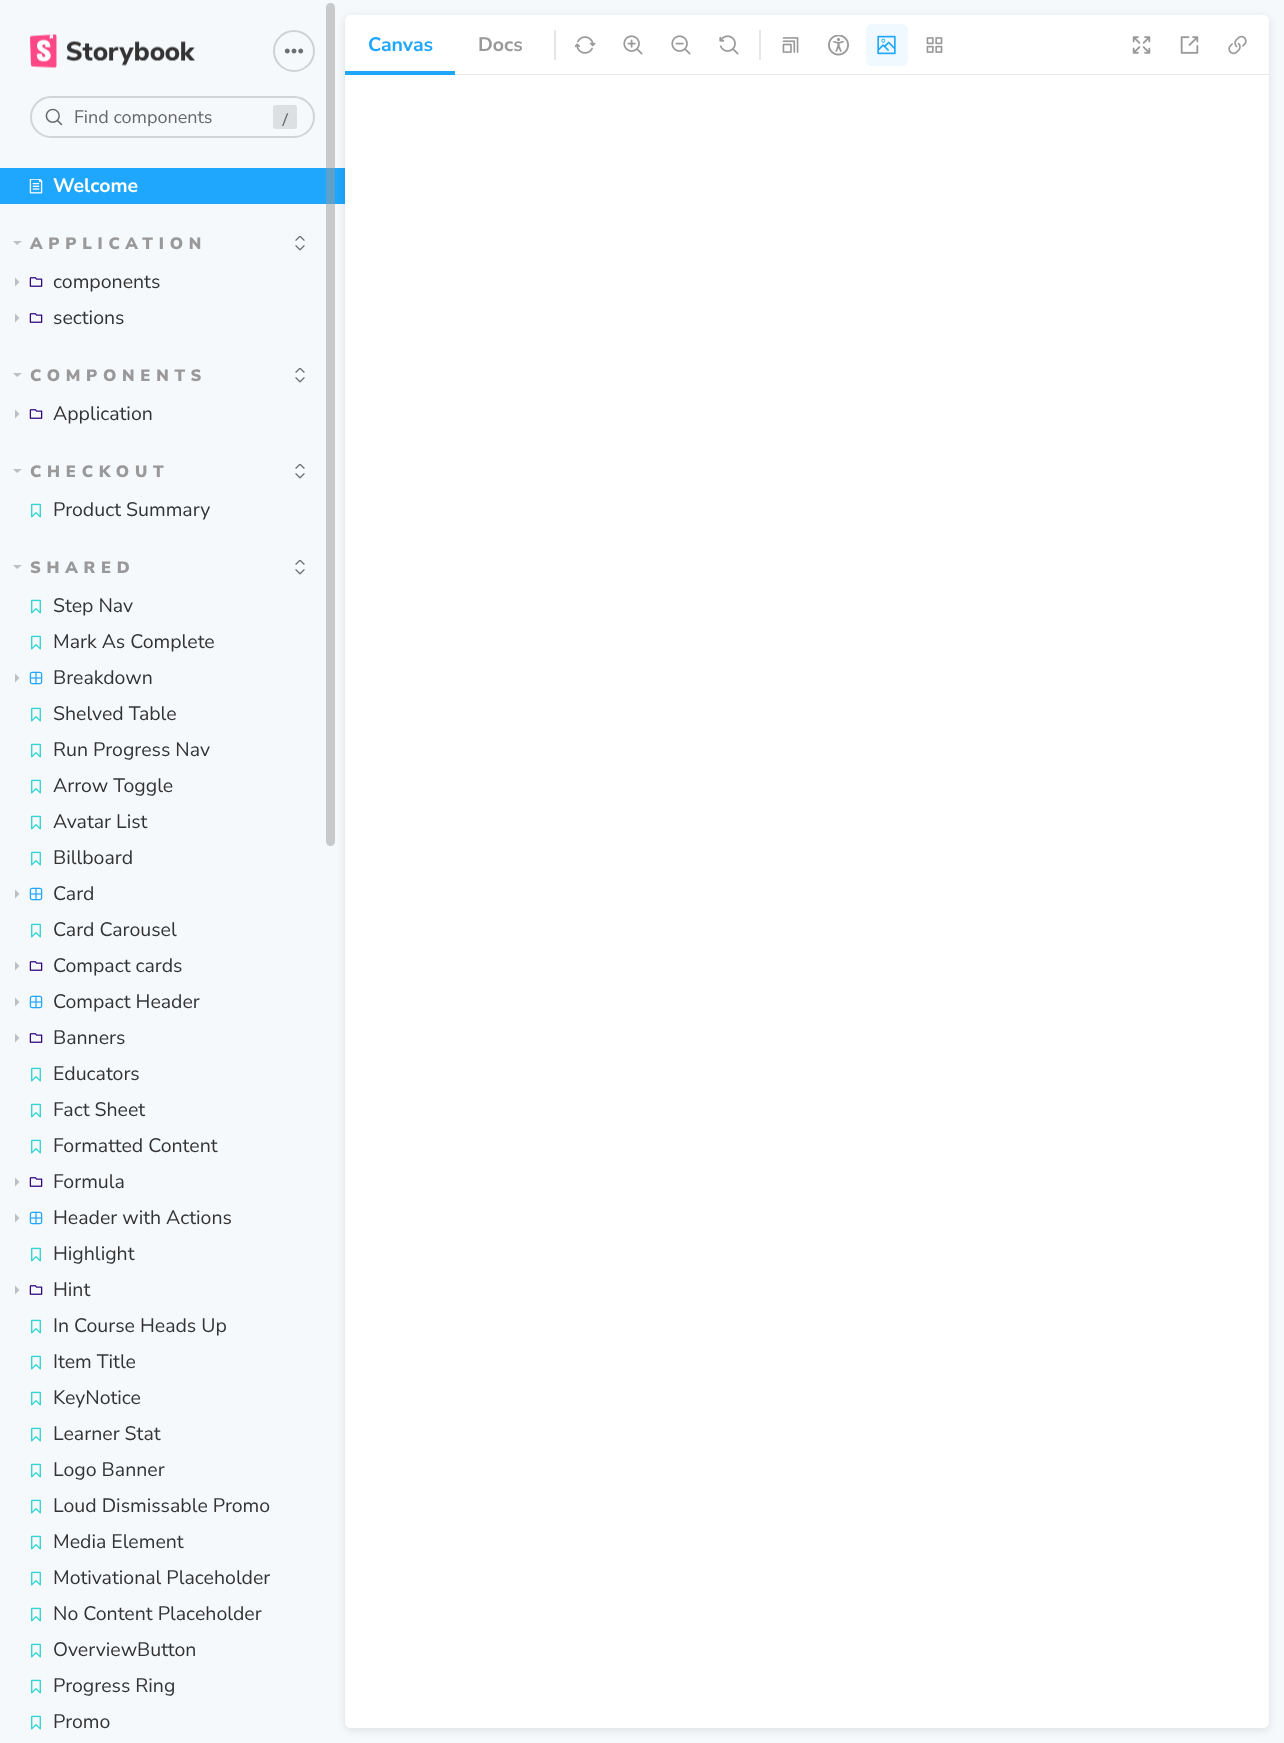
<svg xmlns="http://www.w3.org/2000/svg" width="1284" height="1743">
<rect width="100%" height="100%" fill="#f6f9fc"/>
<rect y="168" width="345" height="36" fill="#1ea7fd"/>
<rect x="326" y="3" width="9" height="843" rx="4.5" fill="#99999980"/>
<rect x="345" y="17" width="924" height="1713" rx="6" fill="#0000001a" filter="blur(4px)"/>
<path d="M351 15h912c3.5 0 6 2.5 6 6v54h-924v-54c0-3.5 2.5-6 6-6z" fill="#fff"/>
<rect x="455" y="74" width="814" height="1" fill="#e6e6e6"/>
<rect x="345" y="71" width="110" height="4" fill="#1ea7fd"/>
<text x="368" y="51" style="font-family:Nunito Sans;font-size:19.5px;font-weight:bold;fill:#1ea7fd">Canvas</text>
<text x="478" y="51" style="font-family:Nunito Sans;font-size:19.5px;font-weight:bold;fill:#999">Docs</text>
<rect x="554" y="30" width="2" height="30" fill="#e6e6e6"/>
<image x="575" y="36" width="21" height="18" href="media/1.png"/>
<image x="623" y="35" width="20" height="20" href="media/2.png"/>
<image x="671" y="35" width="20" height="20" href="media/3.png"/>
<image x="719" y="35" width="20" height="20" href="media/4.png"/>
<rect x="759" y="30" width="2" height="30" fill="#e6e6e6"/>
<image x="782" y="37" width="17" height="16" href="media/5.png"/>
<image x="828" y="35" width="21" height="21" href="media/6.png"/>
<rect x="866" y="24" width="42" height="42" rx="6" fill="#eff9ff"/>
<image x="877" y="35" width="19" height="20" href="media/7.png"/>
<image x="926" y="37" width="17" height="16" href="media/8.png"/>
<image x="1132" y="36" width="19" height="18" href="media/9.png"/>
<image x="1180" y="36" width="19" height="18" href="media/10.png"/>
<image x="1228" y="35" width="19" height="20" href="media/11.png"/>
<path d="M345 75h924v1647c0 3.5-2.5 6-6 6h-912c-3.5 0-6-2.5-6-6z" fill="#fff"/>
<image x="30" y="34" width="165" height="34" href="media/12.png"/>
<circle cx="294" cy="51" r="20" fill="none" stroke="#cfd1d4" stroke-width="2"/>
<image x="284" y="48" width="20" height="6" href="media/13.png"/>
<rect x="31" y="97" width="283" height="40" rx="20" fill="none" stroke="#d1d3d4" stroke-width="2"/>
<image x="45" y="108" width="18" height="18" href="media/14.png"/>
<text x="74" y="123" style="font-family:Nunito Sans;font-size:18px;fill:#666">Find components</text>
<rect x="273" y="105" width="24" height="24" rx="3" fill="#dde0e3"/>
<text x="280" y="125" style="font-family:Roboto Mono;font-size:16.5px;fill:#666">/</text>
<image x="29" y="179" width="14" height="15" href="media/15.png"/>
<text x="53" y="192" style="font-family:Nunito Sans;font-size:19.5px;font-weight:bold;fill:#fff">Welcome</text>
<path d="M13 241h9l-5 4z" fill="#bebfc1"/>
<text x="30" y="249" style="font-family:Nunito Sans;font-size:16.5px;font-weight:900;letter-spacing:5.75px;fill:#999">APPLICATION</text>
<image x="295" y="236" width="10" height="15" href="media/16.png"/>
<path d="M15 286.5v-9l4.5 4.5z" fill="#bebfc1"/>
<image x="29" y="277" width="14" height="10" href="media/17.png"/>
<text x="53" y="288" style="font-family:Nunito Sans;font-size:19.5px;fill:#333">components</text>
<path d="M15 322.5v-9l4.5 4.5z" fill="#bebfc1"/>
<image x="29" y="313" width="14" height="10" href="media/17.png"/>
<text x="53" y="324" style="font-family:Nunito Sans;font-size:19.5px;fill:#333">sections</text>
<path d="M13 373h9l-5 4z" fill="#bebfc1"/>
<text x="30" y="381" style="font-family:Nunito Sans;font-size:16.5px;font-weight:900;letter-spacing:5.75px;fill:#999">COMPONENTS</text>
<image x="295" y="368" width="10" height="15" href="media/16.png"/>
<path d="M15 418.5v-9l4.5 4.5z" fill="#bebfc1"/>
<image x="29" y="409" width="14" height="10" href="media/17.png"/>
<text x="53" y="420" style="font-family:Nunito Sans;font-size:19.5px;fill:#333">Application</text>
<path d="M13 469h9l-5 4z" fill="#bebfc1"/>
<text x="30" y="477" style="font-family:Nunito Sans;font-size:16.5px;font-weight:900;letter-spacing:5.75px;fill:#999">CHECKOUT</text>
<image x="295" y="464" width="10" height="15" href="media/16.png"/>
<image x="31" y="503" width="10" height="15" href="media/18.png"/>
<text x="53" y="516" style="font-family:Nunito Sans;font-size:19.5px;fill:#333">Product Summary</text>
<path d="M13 565h9l-5 4z" fill="#bebfc1"/>
<text x="30" y="573" style="font-family:Nunito Sans;font-size:16.5px;font-weight:900;letter-spacing:5.75px;fill:#999">SHARED</text>
<image x="295" y="560" width="10" height="15" href="media/16.png"/>
<image x="31" y="599" width="10" height="15" href="media/18.png"/>
<text x="53" y="612" style="font-family:Nunito Sans;font-size:19.5px;fill:#333">Step Nav</text>
<image x="31" y="635" width="10" height="15" href="media/18.png"/>
<text x="53" y="648" style="font-family:Nunito Sans;font-size:19.5px;fill:#333">Mark As Complete</text>
<path d="M15 682.5v-9l4.5 4.5z" fill="#bebfc1"/>
<image x="29" y="671" width="14" height="14" href="media/19.png"/>
<text x="53" y="684" style="font-family:Nunito Sans;font-size:19.5px;fill:#333">Breakdown</text>
<image x="31" y="707" width="10" height="15" href="media/18.png"/>
<text x="53" y="720" style="font-family:Nunito Sans;font-size:19.5px;fill:#333">Shelved Table</text>
<image x="31" y="743" width="10" height="15" href="media/18.png"/>
<text x="53" y="756" style="font-family:Nunito Sans;font-size:19.5px;fill:#333">Run Progress Nav</text>
<image x="31" y="779" width="10" height="15" href="media/18.png"/>
<text x="53" y="792" style="font-family:Nunito Sans;font-size:19.5px;fill:#333">Arrow Toggle</text>
<image x="31" y="815" width="10" height="15" href="media/18.png"/>
<text x="53" y="828" style="font-family:Nunito Sans;font-size:19.5px;fill:#333">Avatar List</text>
<image x="31" y="851" width="10" height="15" href="media/18.png"/>
<text x="53" y="864" style="font-family:Nunito Sans;font-size:19.5px;fill:#333">Billboard</text>
<path d="M15 898.5v-9l4.5 4.5z" fill="#bebfc1"/>
<image x="29" y="887" width="14" height="14" href="media/19.png"/>
<text x="53" y="900" style="font-family:Nunito Sans;font-size:19.5px;fill:#333">Card</text>
<image x="31" y="923" width="10" height="15" href="media/18.png"/>
<text x="53" y="936" style="font-family:Nunito Sans;font-size:19.5px;fill:#333">Card Carousel</text>
<path d="M15 970.5v-9l4.5 4.5z" fill="#bebfc1"/>
<image x="29" y="961" width="14" height="10" href="media/17.png"/>
<text x="53" y="972" style="font-family:Nunito Sans;font-size:19.5px;fill:#333">Compact cards</text>
<path d="M15 1006.5v-9l4.5 4.5z" fill="#bebfc1"/>
<image x="29" y="995" width="14" height="14" href="media/19.png"/>
<text x="53" y="1008" style="font-family:Nunito Sans;font-size:19.5px;fill:#333">Compact Header</text>
<path d="M15 1042.5v-9l4.5 4.5z" fill="#bebfc1"/>
<image x="29" y="1033" width="14" height="10" href="media/17.png"/>
<text x="53" y="1044" style="font-family:Nunito Sans;font-size:19.5px;fill:#333">Banners</text>
<image x="31" y="1067" width="10" height="15" href="media/18.png"/>
<text x="53" y="1080" style="font-family:Nunito Sans;font-size:19.5px;fill:#333">Educators</text>
<image x="31" y="1103" width="10" height="15" href="media/18.png"/>
<text x="53" y="1116" style="font-family:Nunito Sans;font-size:19.5px;fill:#333">Fact Sheet</text>
<image x="31" y="1139" width="10" height="15" href="media/18.png"/>
<text x="53" y="1152" style="font-family:Nunito Sans;font-size:19.5px;fill:#333">Formatted Content</text>
<path d="M15 1186.5v-9l4.5 4.5z" fill="#bebfc1"/>
<image x="29" y="1177" width="14" height="10" href="media/17.png"/>
<text x="53" y="1188" style="font-family:Nunito Sans;font-size:19.5px;fill:#333">Formula</text>
<path d="M15 1222.5v-9l4.5 4.5z" fill="#bebfc1"/>
<image x="29" y="1211" width="14" height="14" href="media/19.png"/>
<text x="53" y="1224" style="font-family:Nunito Sans;font-size:19.5px;fill:#333">Header with Actions</text>
<image x="31" y="1247" width="10" height="15" href="media/18.png"/>
<text x="53" y="1260" style="font-family:Nunito Sans;font-size:19.5px;fill:#333">Highlight</text>
<path d="M15 1294.5v-9l4.5 4.5z" fill="#bebfc1"/>
<image x="29" y="1285" width="14" height="10" href="media/17.png"/>
<text x="53" y="1296" style="font-family:Nunito Sans;font-size:19.5px;fill:#333">Hint</text>
<image x="31" y="1319" width="10" height="15" href="media/18.png"/>
<text x="53" y="1332" style="font-family:Nunito Sans;font-size:19.5px;fill:#333">In Course Heads Up</text>
<image x="31" y="1355" width="10" height="15" href="media/18.png"/>
<text x="53" y="1368" style="font-family:Nunito Sans;font-size:19.5px;fill:#333">Item Title</text>
<image x="31" y="1391" width="10" height="15" href="media/18.png"/>
<text x="53" y="1404" style="font-family:Nunito Sans;font-size:19.5px;fill:#333">KeyNotice</text>
<image x="31" y="1427" width="10" height="15" href="media/18.png"/>
<text x="53" y="1440" style="font-family:Nunito Sans;font-size:19.5px;fill:#333">Learner Stat</text>
<image x="31" y="1463" width="10" height="15" href="media/18.png"/>
<text x="53" y="1476" style="font-family:Nunito Sans;font-size:19.5px;fill:#333">Logo Banner</text>
<image x="31" y="1499" width="10" height="15" href="media/18.png"/>
<text x="53" y="1512" style="font-family:Nunito Sans;font-size:19.5px;fill:#333">Loud Dismissable Promo</text>
<image x="31" y="1535" width="10" height="15" href="media/18.png"/>
<text x="53" y="1548" style="font-family:Nunito Sans;font-size:19.5px;fill:#333">Media Element</text>
<image x="31" y="1571" width="10" height="15" href="media/18.png"/>
<text x="53" y="1584" style="font-family:Nunito Sans;font-size:19.5px;fill:#333">Motivational Placeholder</text>
<image x="31" y="1607" width="10" height="15" href="media/18.png"/>
<text x="53" y="1620" style="font-family:Nunito Sans;font-size:19.5px;fill:#333">No Content Placeholder</text>
<image x="31" y="1643" width="10" height="15" href="media/18.png"/>
<text x="53" y="1656" style="font-family:Nunito Sans;font-size:19.5px;fill:#333">OverviewButton</text>
<image x="31" y="1679" width="10" height="15" href="media/18.png"/>
<text x="53" y="1692" style="font-family:Nunito Sans;font-size:19.5px;fill:#333">Progress Ring</text>
<image x="31" y="1715" width="10" height="15" href="media/18.png"/>
<text x="53" y="1728" style="font-family:Nunito Sans;font-size:19.5px;fill:#333">Promo</text>
</svg>
